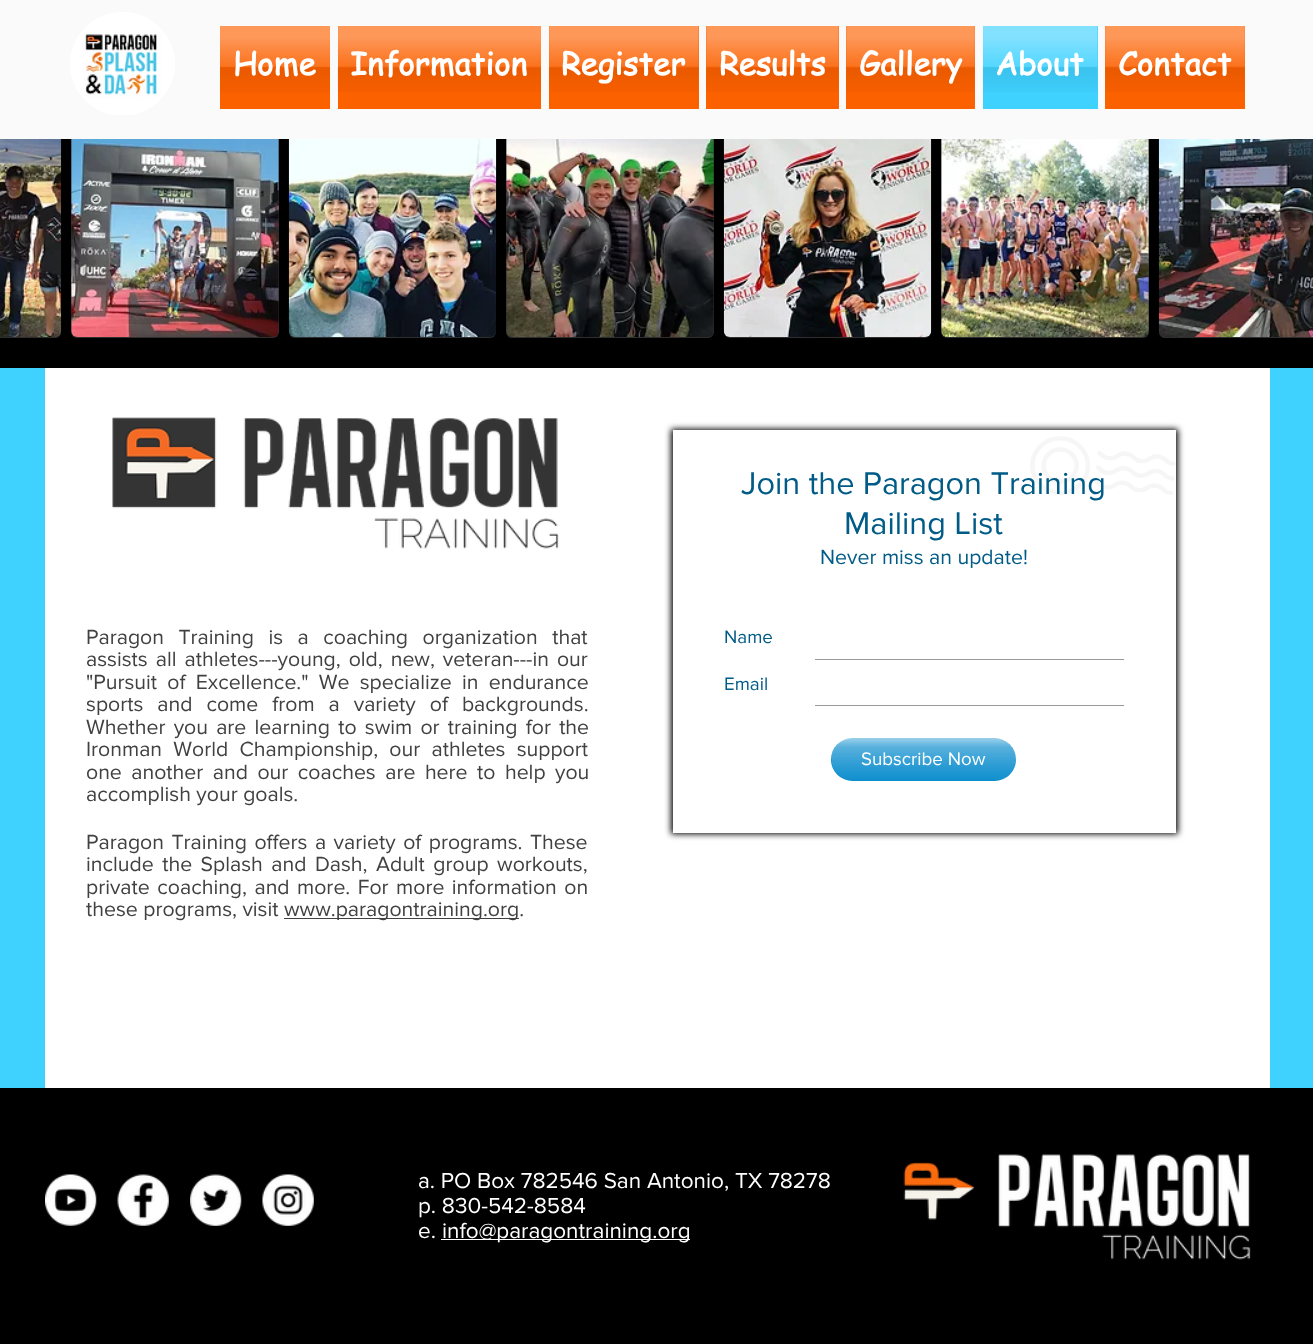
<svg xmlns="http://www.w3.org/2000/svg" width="1313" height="1344">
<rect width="100%" height="100%" fill="#40d2ff"/>
<rect y="139" width="1313" height="229" fill="#000"/>
<path d="M0 130h55c3.5 0 6 2.5 6 6v196c0 3.5-2.5 6-6 6h-55z" fill="#2f2e2e"/>
<rect x="71" y="130" width="208" height="208" rx="6" fill="#2f2e2e"/>
<rect x="289" y="130" width="207" height="208" rx="6" fill="#2f2e2e"/>
<rect x="506" y="130" width="208" height="208" rx="6" fill="#2f2e2e"/>
<rect x="724" y="130" width="207" height="208" rx="6" fill="#2f2e2e"/>
<rect x="941" y="130" width="208" height="208" rx="6" fill="#2f2e2e"/>
<path d="M1165 130h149v208h-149c-3.5 0-6-2.5-6-6v-196c0-3.5 2.5-6 6-6z" fill="#2f2e2e"/>
<rect width="1313" height="139" fill="#fafafa"/>
<image x="70" y="12" width="105" height="103" href="media/1.png"/>
<rect x="220" y="26" width="110" height="83" fill="#fc6100"/>
<image x="220" y="26" width="110" height="67" href="media/2.png"/>
<text x="233" y="75" style="font-family:'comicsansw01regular';font-size:31.25px;font-weight:bold;fill:#fff">Home</text>
<rect x="338" y="26" width="203" height="83" fill="#fc6100"/>
<image x="337" y="26" width="204" height="66" href="media/3.png"/>
<text x="350" y="75" style="font-family:'comicsansw01regular';font-size:31.25px;font-weight:bold;fill:#fff">Information</text>
<rect x="549" y="26" width="150" height="83" fill="#fc6100"/>
<image x="548" y="26" width="151" height="66" href="media/4.png"/>
<text x="561" y="75" style="font-family:'comicsansw01regular';font-size:31.25px;font-weight:bold;fill:#fff">Register</text>
<rect x="706" y="26" width="133" height="83" fill="#fc6100"/>
<image x="706" y="26" width="133" height="66" href="media/5.png"/>
<text x="719" y="75" style="font-family:'comicsansw01regular';font-size:31.25px;font-weight:bold;fill:#fff">Results</text>
<rect x="846" y="26" width="129" height="83" fill="#fc6100"/>
<image x="846" y="26" width="129" height="66" href="media/6.png"/>
<text x="859" y="75" style="font-family:'comicsansw01regular';font-size:31.25px;font-weight:bold;fill:#fff">Gallery</text>
<rect x="983" y="26" width="115" height="83" fill="#40d2ff"/>
<image x="982" y="26" width="116" height="66" href="media/7.png"/>
<text x="995" y="75" style="font-family:'comicsansw01regular';font-size:31.25px;font-weight:bold;fill:#fff">About</text>
<rect x="1105" y="26" width="140" height="83" fill="#fc6100"/>
<image x="1105" y="26" width="140" height="66" href="media/8.png"/>
<text x="1118" y="75" style="font-family:'comicsansw01regular';font-size:31.25px;font-weight:bold;fill:#fff">Contact</text>
<rect x="45" y="368" width="1225" height="720" fill="#fff"/>
<image x="0" y="139" width="62" height="198" href="media/9.png"/>
<image x="71" y="139" width="208" height="198" href="media/10.png"/>
<image x="288" y="139" width="209" height="198" href="media/11.png"/>
<image x="506" y="139" width="208" height="198" href="media/12.png"/>
<image x="723" y="139" width="209" height="198" href="media/13.png"/>
<image x="941" y="139" width="208" height="198" href="media/14.png"/>
<image x="1158" y="139" width="155" height="198" href="media/15.png"/>
<image x="112" y="417" width="447" height="132" href="media/16.png"/>
<rect x="671" y="429" width="507" height="405" fill="#000" filter="blur(3px)"/>
<rect x="673" y="430" width="503" height="403" fill="#fff"/>
<image x="1030" y="436" width="146" height="59" href="media/17.png"/>
<text x="741" y="494" style="font-family:'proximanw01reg';font-size:32.5px;fill:#005b87">Join the Paragon Training</text>
<text x="844" y="534" style="font-family:'proximanw01reg';font-size:32.5px;fill:#005b87">Mailing List</text>
<text x="820" y="564" style="font-family:'proximanw01reg';font-size:21.25px;fill:#005b87">Never miss an update!</text>
<text x="724" y="643" style="font-family:'proximanw01reg';font-size:18.75px;fill:#005b87">Name</text>
<rect x="815" y="659" width="309" height="1" fill="#999997"/>
<text x="724" y="690" style="font-family:'proximanw01reg';font-size:18.75px;fill:#005b87">Email</text>
<rect x="815" y="705" width="309" height="1" fill="#999997"/>
<rect x="831" y="738" width="185" height="43" rx="21.5" fill="#0088cb"/>
<image x="831" y="738" width="185" height="43" href="media/18.png"/>
<text x="861" y="765" style="font-family:'proximanw01reg';font-size:18.75px;fill:#fff">Subscribe Now</text>
<text x="86" y="644" word-spacing="9" style="font-family:'proximanw01reg';font-size:21.25px;fill:#414141">Paragon Training is a coaching organization that</text>
<text x="86" y="666" word-spacing="2.5" style="font-family:'proximanw01reg';font-size:21.25px;fill:#414141">assists all athletes---young, old, new, veteran---in our</text>
<text x="86" y="689" word-spacing="4.75" style="font-family:'proximanw01reg';font-size:21.25px;fill:#414141">"Pursuit of Excellence." We specialize in endurance</text>
<text x="86" y="711" word-spacing="8.5" style="font-family:'proximanw01reg';font-size:21.25px;fill:#414141">sports and come from a variety of backgrounds.</text>
<text x="86" y="734" word-spacing="2.75" style="font-family:'proximanw01reg';font-size:21.25px;fill:#414141">Whether you are learning to swim or training for the</text>
<text x="86" y="756" word-spacing="5.75" style="font-family:'proximanw01reg';font-size:21.25px;fill:#414141">Ironman World Championship, our athletes support</text>
<text x="86" y="779" word-spacing="4" style="font-family:'proximanw01reg';font-size:21.25px;fill:#414141">one another and our coaches are here to help you</text>
<text x="86" y="801" style="font-family:'proximanw01reg';font-size:21.25px;fill:#414141">accomplish your goals.</text>
<text x="86" y="849" word-spacing="2" style="font-family:'proximanw01reg';font-size:21.25px;fill:#414141">Paragon Training offers a variety of programs. These</text>
<text x="86" y="871" word-spacing="3" style="font-family:'proximanw01reg';font-size:21.25px;fill:#414141">include the Splash and Dash, Adult group workouts,</text>
<text x="86" y="894" word-spacing="2" style="font-family:'proximanw01reg';font-size:21.25px;fill:#414141">private coaching, and more. For more information on</text>
<text x="86" y="916" style="font-family:'proximanw01reg';font-size:21.25px;fill:#414141">these programs, visit</text>
<rect x="284" y="918" width="235" height="1" fill="#414141"/>
<text x="284" y="916" style="font-family:'proximanw01reg';font-size:21.25px;fill:#414141">www.paragontraining.org.</text>
<rect y="1088" width="1313" height="256" fill="#000"/>
<image x="45" y="1174" width="52" height="52" href="media/19.png"/>
<image x="117" y="1174" width="52" height="52" href="media/20.png"/>
<image x="190" y="1174" width="52" height="52" href="media/21.png"/>
<image x="262" y="1174" width="52" height="52" href="media/22.png"/>
<text x="418" y="1188" style="font-family:'proximanw01reg';font-size:22.5px;fill:#fff">a. PO Box 782546 San Antonio, TX 78278</text>
<text x="418" y="1213" style="font-family:'proximanw01reg';font-size:22.5px;fill:#fff">p. 830-542-8584</text>
<text x="418" y="1238" style="font-family:'proximanw01reg';font-size:22.5px;fill:#fff">e.</text>
<rect x="441" y="1239" width="249" height="1" fill="#fff"/>
<text x="442" y="1238" style="font-family:'proximanw01reg';font-size:22.5px;fill:#fff">info@paragontraining.org</text>
<image x="903" y="1154" width="348" height="106" href="media/23.png"/>
</svg>
